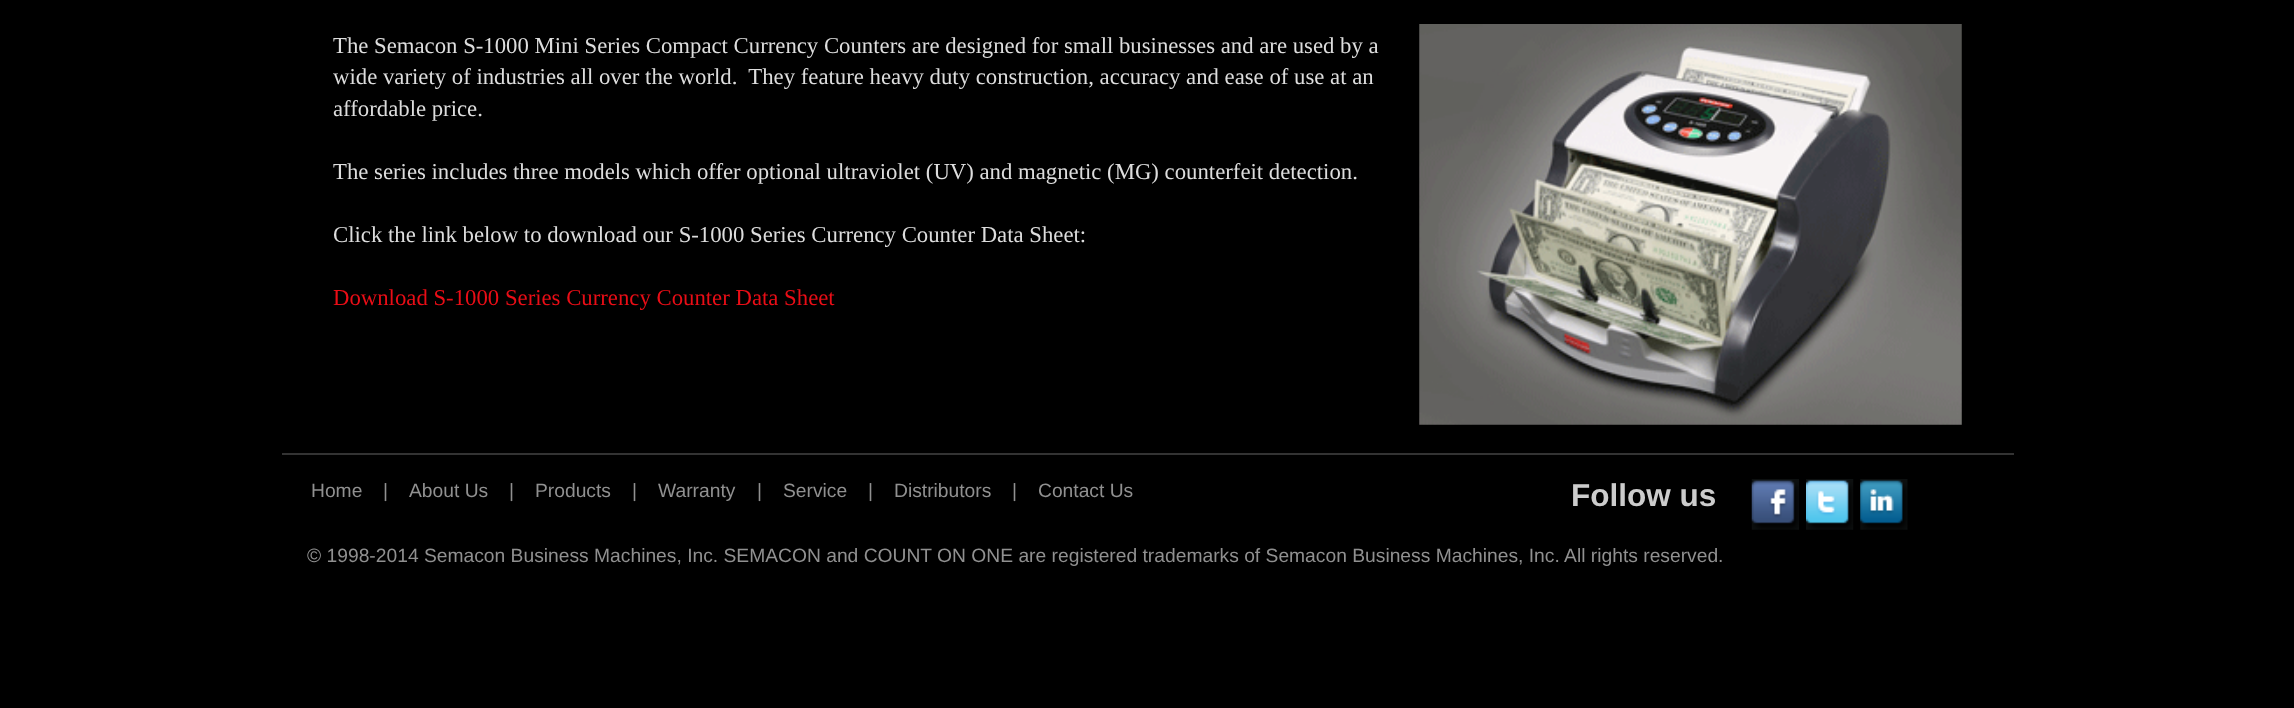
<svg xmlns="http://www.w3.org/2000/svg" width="2294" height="708">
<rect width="100%" height="100%" fill="#000"/>
<text x="333" y="53" style="font-family:Liberation Serif;font-size:22.75px;fill:#ddd">The Semacon S-1000 Mini Series Compact Currency Counters are designed for small businesses and are used by a</text>
<text x="333" y="84" style="font-family:Liberation Serif;font-size:22.75px;fill:#ddd" xml:space="preserve">wide variety of industries all over the world.  They feature heavy duty construction, accuracy and ease of use at an</text>
<text x="333" y="116" style="font-family:Liberation Serif;font-size:22.75px;fill:#ddd">affordable price.</text>
<text x="333" y="179" style="font-family:Liberation Serif;font-size:22.75px;fill:#ddd">The series includes three models which offer optional ultraviolet (UV) and magnetic (MG) counterfeit detection.</text>
<text x="333" y="242" style="font-family:Liberation Serif;font-size:22.75px;fill:#ddd">Click the link below to download our S-1000 Series Currency Counter Data Sheet:</text>
<text x="333" y="305" style="font-family:Liberation Serif;font-size:22.75px;fill:#e90d16">Download S-1000 Series Currency Counter Data Sheet</text>
<image x="1419" y="24" width="543" height="401" href="media/1.png"/>
<rect x="282" y="453" width="1732" height="2" fill="#333"/>
<text x="311" y="497" style="font-family:Liberation Sans;font-size:19.25px;fill:#909090">Home</text>
<text x="383" y="497" style="font-family:Liberation Sans;font-size:19.25px;fill:#909090">|</text>
<text x="409" y="497" style="font-family:Liberation Sans;font-size:19.25px;fill:#909090">About Us</text>
<text x="509" y="497" style="font-family:Liberation Sans;font-size:19.25px;fill:#909090">|</text>
<text x="535" y="497" style="font-family:Liberation Sans;font-size:19.25px;fill:#909090">Products</text>
<text x="632" y="497" style="font-family:Liberation Sans;font-size:19.25px;fill:#909090">|</text>
<text x="658" y="497" style="font-family:Liberation Sans;font-size:19.25px;fill:#909090">Warranty</text>
<text x="757" y="497" style="font-family:Liberation Sans;font-size:19.25px;fill:#909090">|</text>
<text x="783" y="497" style="font-family:Liberation Sans;font-size:19.25px;fill:#909090">Service</text>
<text x="868" y="497" style="font-family:Liberation Sans;font-size:19.25px;fill:#909090">|</text>
<text x="894" y="497" style="font-family:Liberation Sans;font-size:19.25px;fill:#909090">Distributors</text>
<text x="1012" y="497" style="font-family:Liberation Sans;font-size:19.25px;fill:#909090">|</text>
<text x="1038" y="497" style="font-family:Liberation Sans;font-size:19.25px;fill:#909090">Contact Us</text>
<text x="1571" y="506" style="font-family:Liberation Sans;font-size:31.5px;font-weight:bold;fill:#ccc">Follow us</text>
<image x="1751" y="479" width="48" height="51" href="media/2.png"/>
<image x="1806" y="479" width="48" height="51" href="media/3.png"/>
<image x="1860" y="479" width="48" height="51" href="media/4.png"/>
<text x="307" y="562" style="font-family:Liberation Sans;font-size:19.25px;fill:#909090">© 1998-2014 Semacon Business Machines, Inc. SEMACON and COUNT ON ONE are registered trademarks of Semacon Business Machines, Inc. All rights reserved.</text>
</svg>
